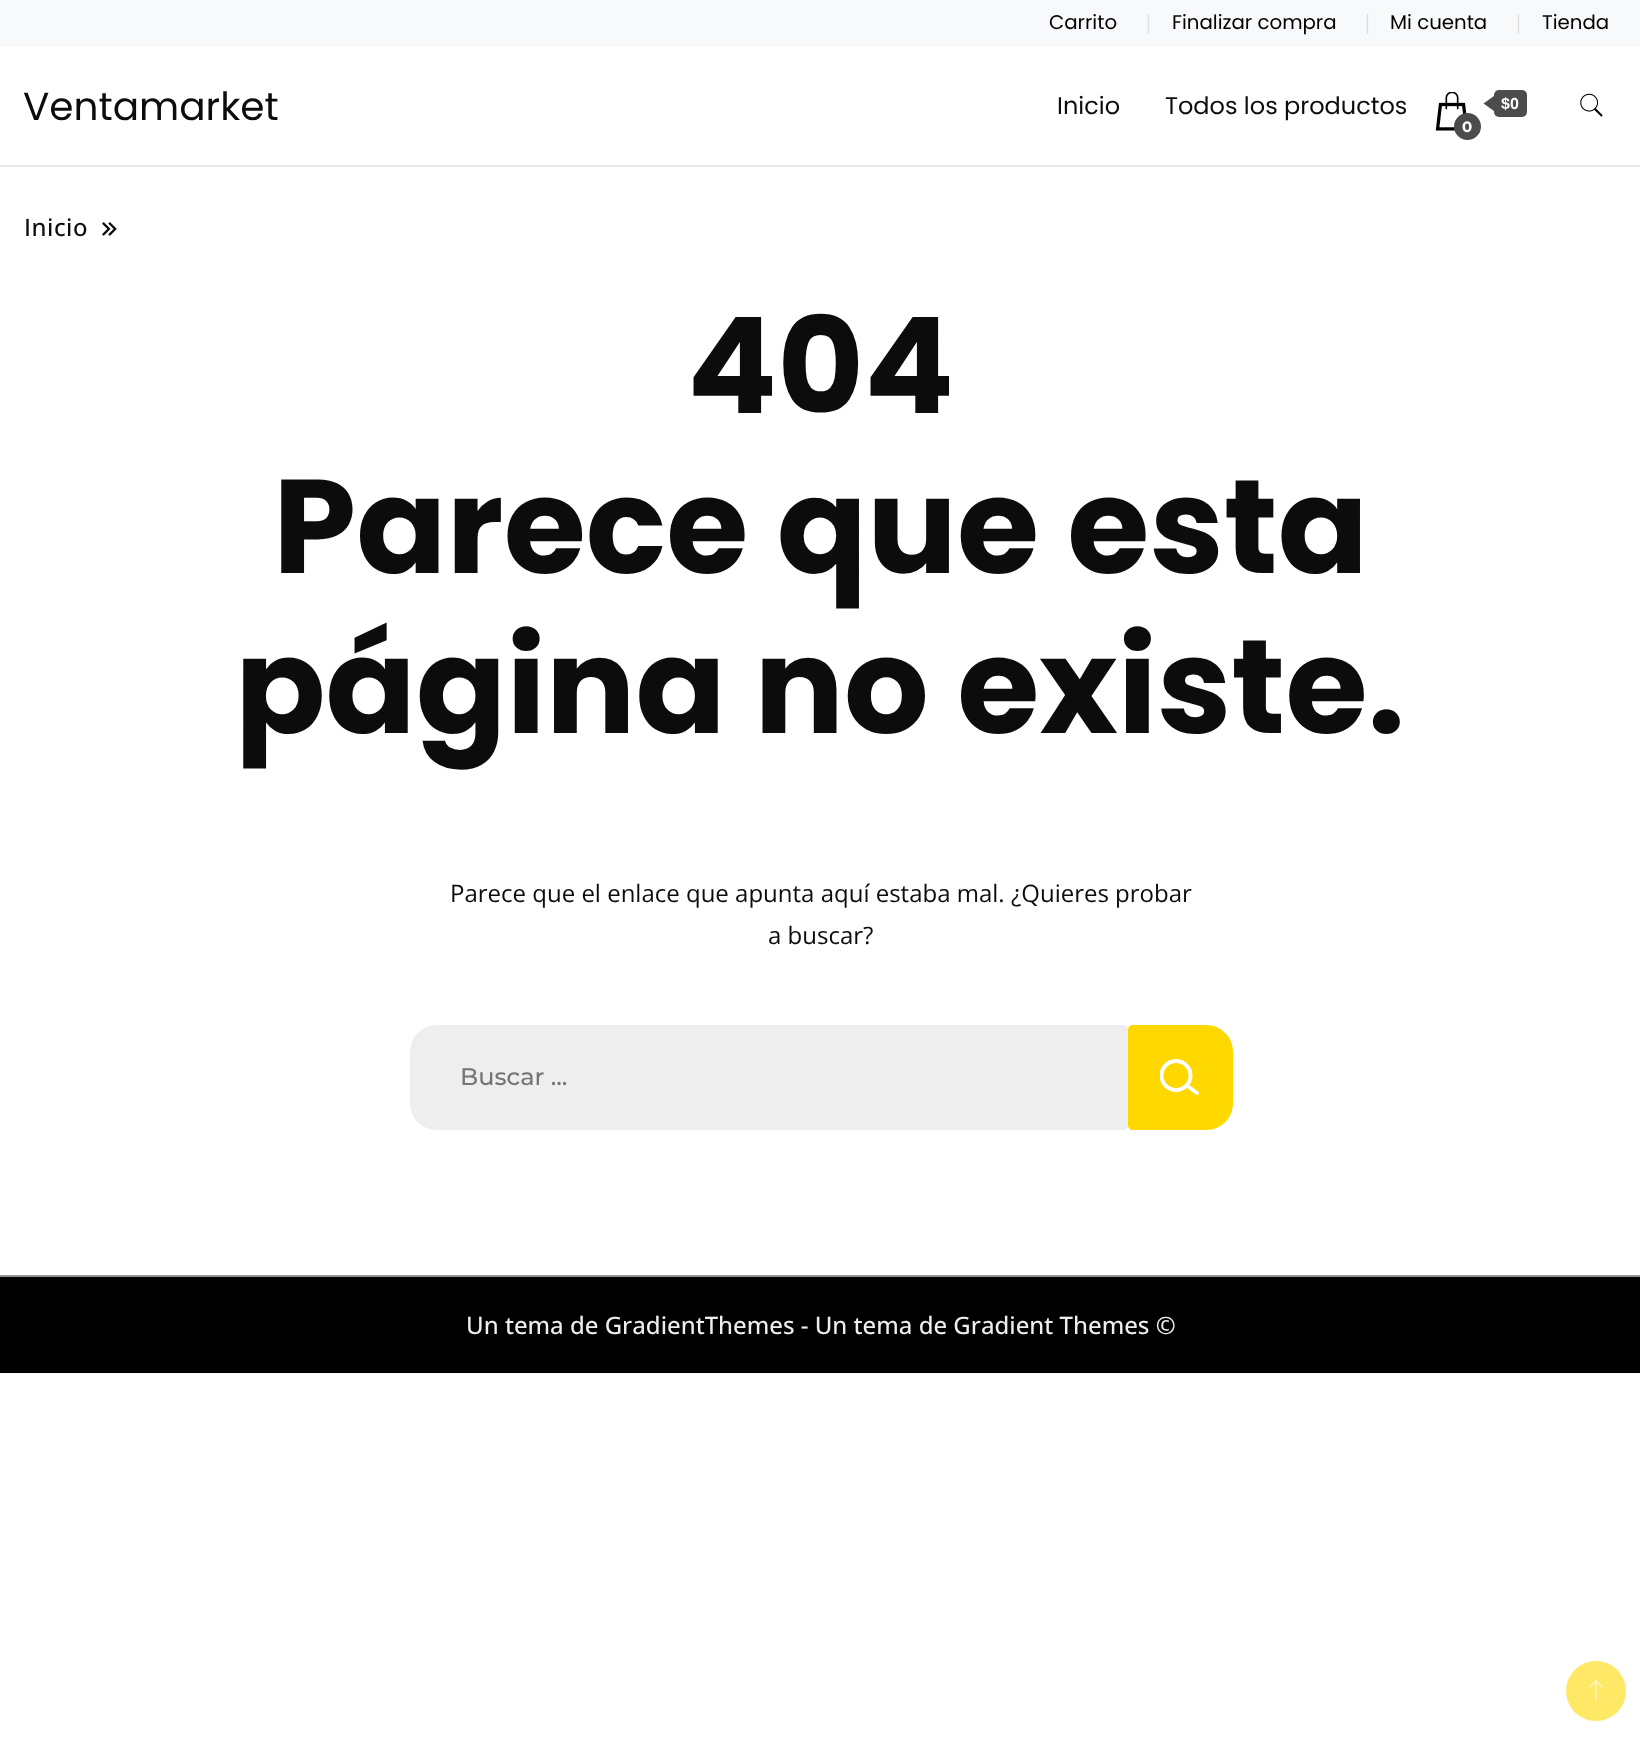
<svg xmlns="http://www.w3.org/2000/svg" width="1640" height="1758">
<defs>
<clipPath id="clip1"><rect x="1160" y="1059" width="40" height="36"/></clipPath>
</defs>
<rect width="100%" height="100%" fill="#fff"/>
<rect y="165" width="1640" height="2" fill="#e8e9e9"/>
<rect width="1640" height="47" fill="#f8f9fa"/>
<text x="1049" y="29" style="font-family:Poppins;font-size:19.75px;fill:#000">Carrito</text>
<text x="1143" y="29" style="font-family:Open Sans;font-size:19.75px;fill:#ddd">|</text>
<text x="1172" y="29" style="font-family:Poppins;font-size:19.75px;fill:#000">Finalizar compra</text>
<text x="1362" y="29" style="font-family:Open Sans;font-size:19.75px;fill:#ddd">|</text>
<text x="1390" y="29" style="font-family:Poppins;font-size:19.75px;fill:#000">Mi cuenta</text>
<text x="1513" y="29" style="font-family:Open Sans;font-size:19.75px;fill:#ddd">|</text>
<text x="1542" y="29" style="font-family:Poppins;font-size:19.75px;fill:#000">Tienda</text>
<text x="23" y="120" style="font-family:Poppins;font-size:39px;fill:#0c0c0c">Ventamarket</text>
<text x="1057" y="114" style="font-family:Poppins;font-size:24px;fill:#0c0c0c">Inicio</text>
<text x="1165" y="114" style="font-family:Poppins;font-size:24px;fill:#0c0c0c">Todos los productos</text>
<image x="1435" y="92" width="32" height="39" href="media/1.png"/>
<rect x="1494" y="90" width="33" height="27" rx="5" fill="#4c4c4c"/>
<path d="M1494 96v15l-10.5-7.5z" fill="#4c4c4c"/>
<text x="1501" y="109" style="font-family:Liberation Sans;font-size:16px;font-weight:bold;fill:#fff">$0</text>
<circle cx="1467.5" cy="126.5" r="13.5" fill="#4c4c4c"/>
<text x="1462" y="132" style="font-family:Montserrat;font-size:15px;font-weight:bold;fill:#fff">0</text>
<image x="1580" y="93" width="23" height="24" href="media/2.png"/>
<text x="24" y="236" style="font-family:Open Sans;font-size:24px;font-weight:500;letter-spacing:0.5px;fill:#0c0c0c">Inicio</text>
<image x="102" y="222" width="15" height="14" href="media/3.png"/>
<text x="687" y="413" style="font-family:Poppins;font-size:133.25px;font-weight:bold;fill:#0c0c0c">404</text>
<text x="273" y="573" style="font-family:Poppins;font-size:133.25px;font-weight:bold;fill:#0c0c0c">Parece que esta</text>
<text x="235" y="733" style="font-family:Poppins;font-size:133.25px;font-weight:bold;fill:#0c0c0c">página no existe.</text>
<text x="450" y="902" style="font-family:Open Sans;font-size:24px;fill:#0c0c0c">Parece que el enlace que apunta aquí estaba mal. ¿Quieres probar</text>
<text x="768" y="944" style="font-family:Open Sans;font-size:24px;fill:#0c0c0c">a buscar?</text>
<path d="M437 1025h686c3 0 5 2 5 5v95c0 3-2 5-5 5h-686c-15 0-27-12-27-27v-51c0-15 12-27 27-27z" fill="#eee"/>
<text x="460" y="1085" style="font-family:Montserrat;font-size:24px;font-weight:500;fill:#757575">Buscar …</text>
<path d="M1133 1025h73c15 0 27 12 27 27v51c0 15-12 27-27 27h-73c-3 0-5-2-5-5v-95c0-3 2-5 5-5z" fill="#ffd800"/>
<g clip-path="url(#clip1)">
<circle cx="1176" cy="1075.5" r="14.5" fill="none" stroke="#fff" stroke-width="3.9"/>
</g>
<path d="M1187.5 1086l9.5 7" fill="none" stroke="#fff" stroke-width="3.9" stroke-linecap="round" stroke-linejoin="round"/>
<rect y="1277" width="1640" height="96" fill="#000"/>
<rect y="1275" width="1640" height="2" fill="#929497"/>
<text x="466" y="1334" style="font-family:Open Sans;font-size:24px;font-weight:500;fill:#eee">Un tema de GradientThemes - Un tema de Gradient Themes ©</text>
<circle cx="1596" cy="1691" r="30" fill="#ffe866"/>
<image x="1589" y="1680" width="14" height="21" href="media/4.png"/>
</svg>
